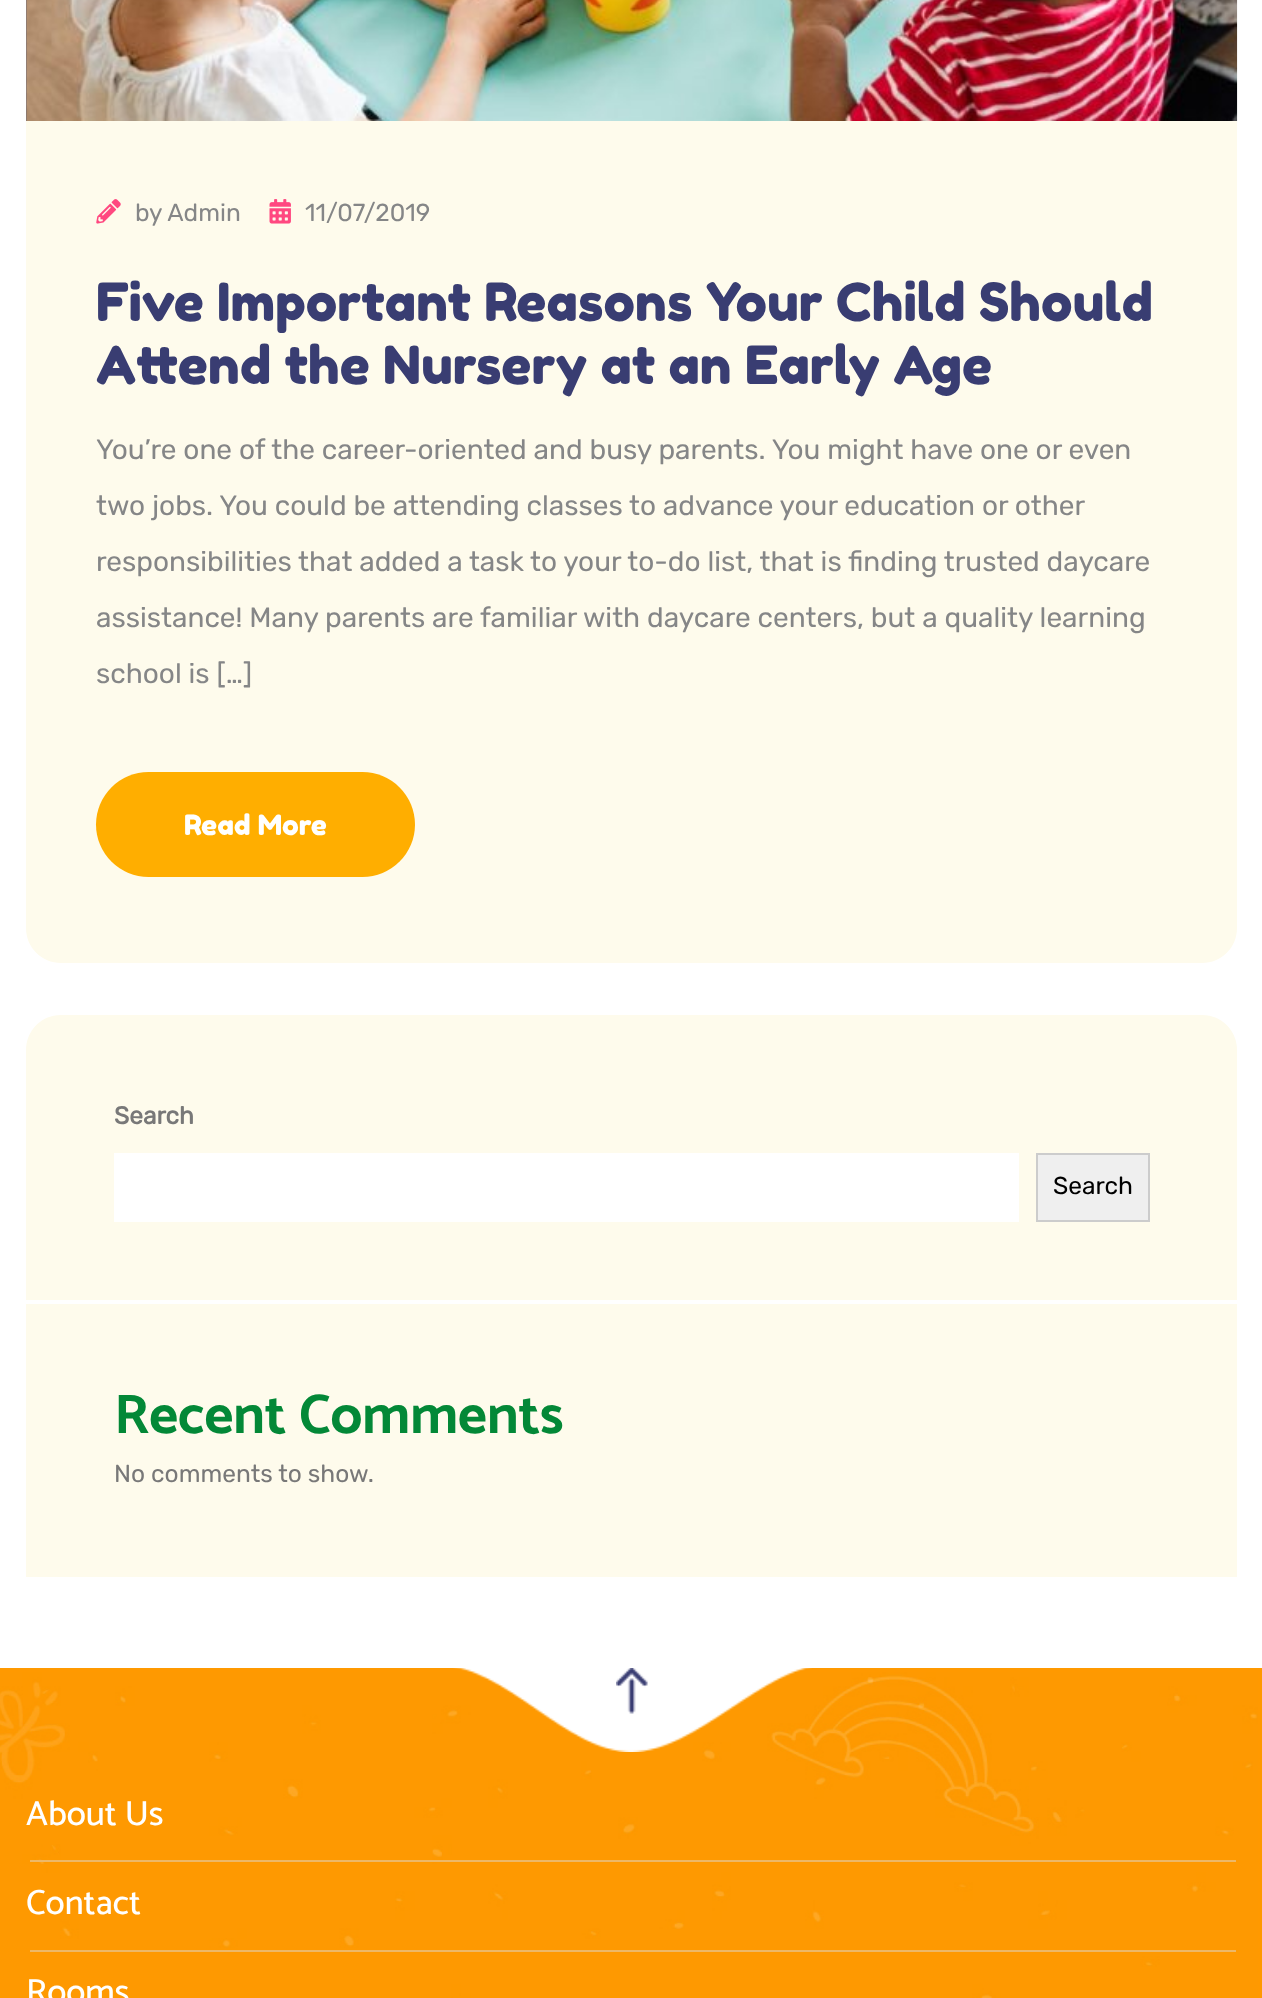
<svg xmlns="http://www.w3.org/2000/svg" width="1262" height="1998">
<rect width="100%" height="100%" fill="#fff"/>
<rect x="26" width="1" height="121" fill="#656675"/>
<image x="26" y="0" width="1212" height="121" href="media/1.png"/>
<path d="M26 121h1211v807c0 19.5-15.5 35-35 35h-1141c-19.5 0-35-15.5-35-35z" fill="#fefbec"/>
<image x="96" y="199" width="25" height="25" href="media/2.png"/>
<text x="135" y="221" style="font-family:Rubik;font-size:24.5px;font-weight:300;fill:#858687">by Admin</text>
<image x="269" y="199" width="22" height="25" href="media/3.png"/>
<text x="305" y="221" style="font-family:Rubik;font-size:24.5px;font-weight:300;fill:#858687">11/07/2019</text>
<text x="96" y="321" style="font-family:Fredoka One;font-size:52.5px;fill:#393d72">Five Important Reasons Your Child Should</text>
<text x="96" y="384" style="font-family:Fredoka One;font-size:52.5px;fill:#393d72">Attend the Nursery at an Early Age</text>
<text x="96" y="459" style="font-family:Rubik;font-size:28px;font-weight:300;fill:#858687">You’re one of the career-oriented and busy parents. You might have one or even</text>
<text x="96" y="515" style="font-family:Rubik;font-size:28px;font-weight:300;fill:#858687">two jobs. You could be attending classes to advance your education or other</text>
<text x="96" y="571" style="font-family:Rubik;font-size:28px;font-weight:300;fill:#858687">responsibilities that added a task to your to-do list, that is finding trusted daycare</text>
<text x="96" y="627" style="font-family:Rubik;font-size:28px;font-weight:300;fill:#858687">assistance! Many parents are familiar with daycare centers, but a quality learning</text>
<text x="96" y="683" style="font-family:Rubik;font-size:28px;font-weight:300;fill:#858687">school is […]</text>
<rect x="96" y="772" width="319" height="105" rx="52.5" fill="#ffae00"/>
<text x="184" y="835" style="font-family:Fredoka One;font-size:28px;fill:#fff">Read More</text>
<path d="M61 1015h1141c19.5 0 35 15.5 35 35v250h-1211v-250c0-19.5 15.5-35 35-35z" fill="#fefbec"/>
<text x="114" y="1124" style="font-family:Rubik;font-size:24.5px;font-weight:bold;fill:#787878">Search</text>
<rect x="114" y="1153" width="905" height="69" fill="#fff"/>
<rect x="1037" y="1154" width="112" height="67" fill="#efefef" stroke="#ccc" stroke-width="2"/>
<text x="1053" y="1194" style="font-family:Rubik;font-size:24.5px;font-weight:300;fill:#000">Search</text>
<rect x="26" y="1304" width="1211" height="273" fill="#fefbec"/>
<text x="114" y="1433" style="font-family:Catamaran;font-size:56px;font-weight:bold;fill:#038837">Recent Comments</text>
<text x="114" y="1482" style="font-family:Rubik;font-size:24.5px;font-weight:300;fill:#787878">No comments to show.</text>
<rect y="1668" width="1262" height="330" fill="#f90"/>
<image x="0" y="1672" width="1258" height="326" href="media/6.png"/>
<image x="453" y="1668" width="359" height="84" href="media/4.png"/>
<image x="616" y="1668" width="32" height="46" href="media/5.png"/>
<rect x="30" y="1860" width="1206" height="2" fill="#edb868"/>
<text x="26" y="1825" style="font-family:Catamaran;font-size:35px;font-weight:500;fill:#fff">About Us</text>
<rect x="30" y="1950" width="1206" height="2" fill="#edb868"/>
<text x="26" y="1914" style="font-family:Catamaran;font-size:35px;font-weight:500;fill:#fff">Contact</text>
<text x="26" y="2003" style="font-family:Catamaran;font-size:35px;font-weight:500;fill:#fff">Rooms</text>
</svg>
